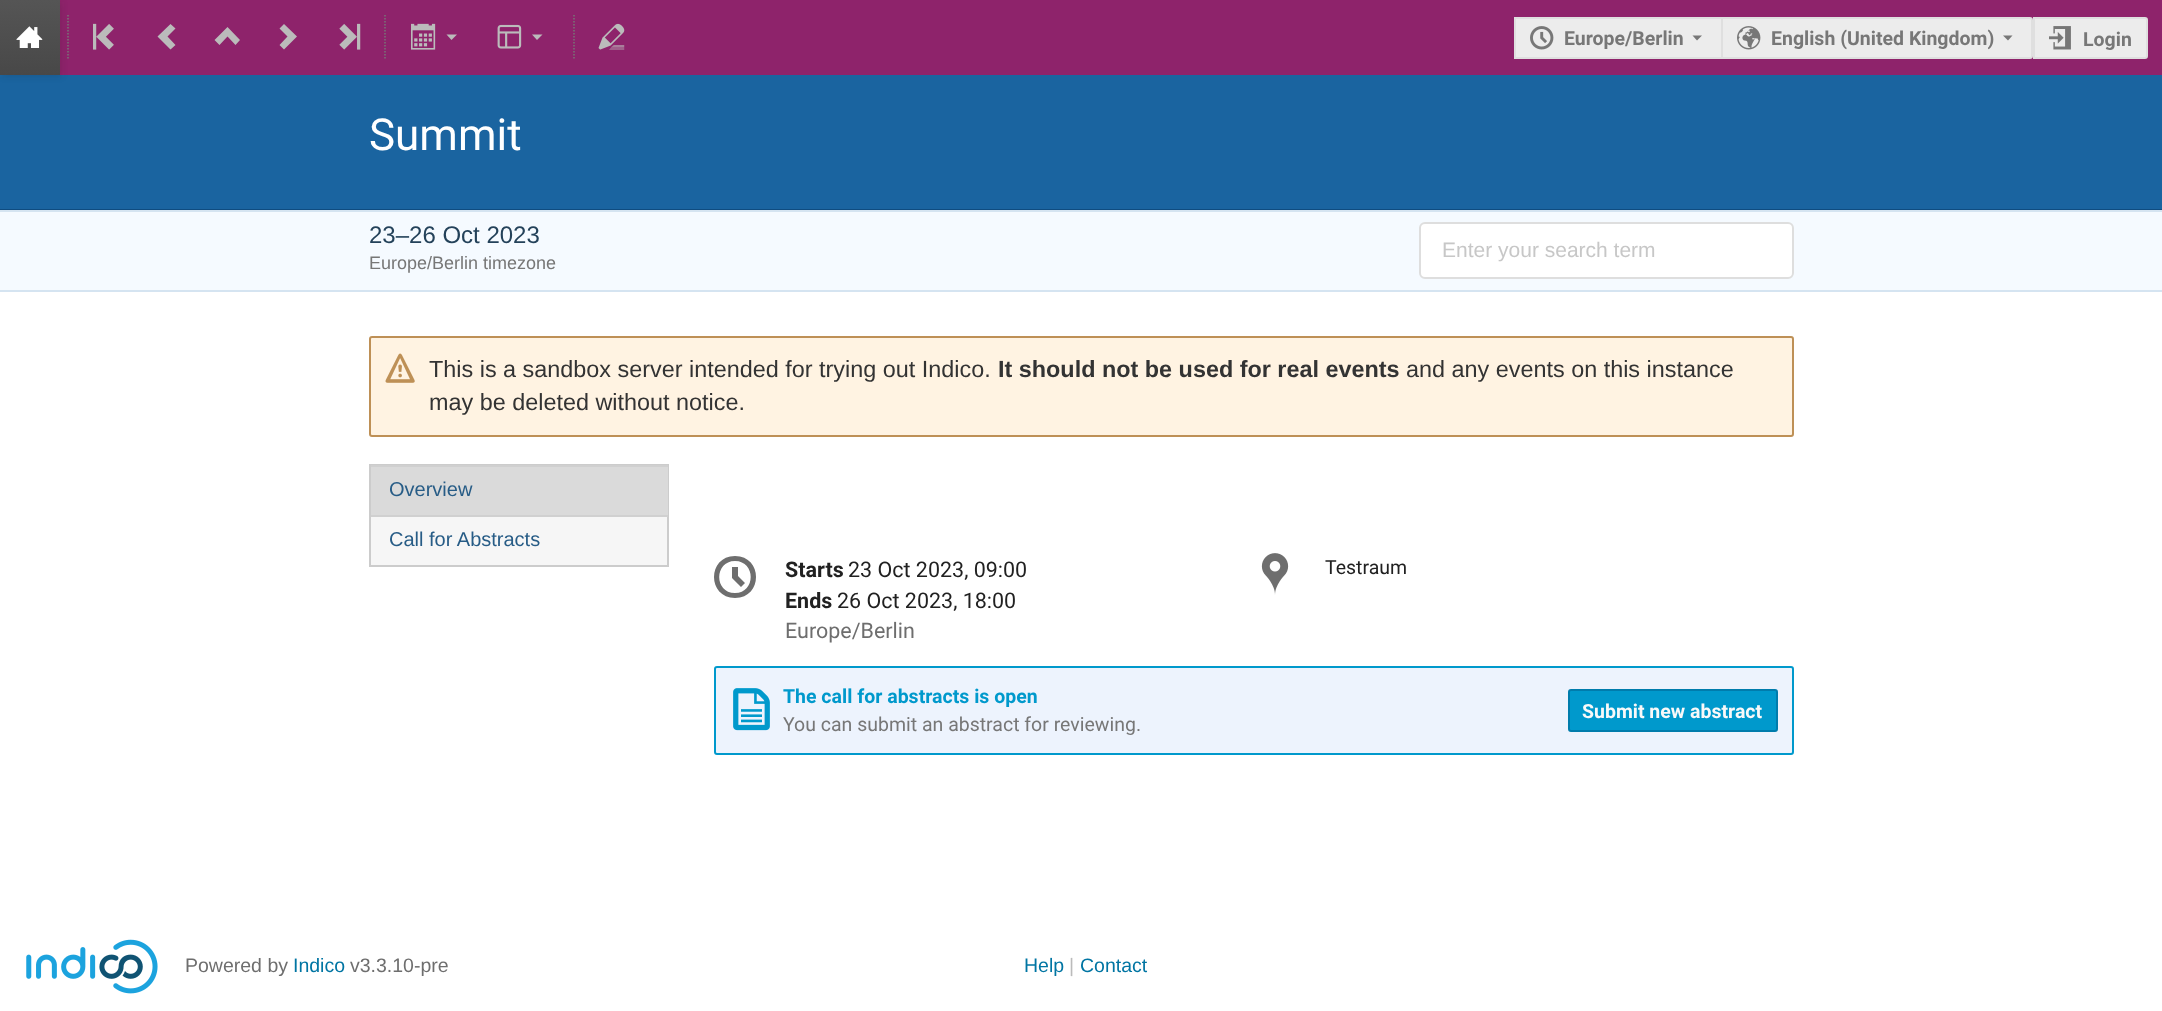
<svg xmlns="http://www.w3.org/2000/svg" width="2162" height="1011">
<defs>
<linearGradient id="g1" gradientUnits="userSpaceOnUse" x1="30" y1="0" x2="30" y2="75"><stop offset="0" stop-color="#555"/><stop offset="1" stop-color="#484848"/></linearGradient>
</defs>
<rect width="100%" height="100%" fill="#fff"/>
<rect x="60" width="2102" height="75" fill="#8e236b"/>
<rect y="75" width="2162" height="134" fill="#1a64a0"/>
<rect x="2" y="2" width="60" height="75" fill="#1414141a" filter="blur(3px)"/>
<rect width="60" height="75" fill="url(#g1)"/>
<image x="16" y="26" width="27" height="22" href="media/1.png"/>
<path d="M68 15v45" fill="none" stroke="#777" stroke-width="1.5" stroke-dasharray="1.5 1.5"/>
<image x="93" y="23" width="21" height="27" href="media/2.png"/>
<path d="M170.5 49.5l5-4.5l-8-8.5l8-8l-5-4.5l-13 12.5z" fill="#bbb"/>
<path d="M214.5 40l5 5l8-8.5l8 8.5l4.5-5l-12.5-13z" fill="#bbb"/>
<path d="M284 24l-4.5 4.5l8 8l-8 8.5l4.5 4.5l13-13z" fill="#bbb"/>
<image x="339" y="23" width="22" height="27" href="media/3.png"/>
<path d="M385 15v45" fill="none" stroke="#777" stroke-width="1.5" stroke-dasharray="1.5 1.5"/>
<image x="411" y="23" width="25" height="27" href="media/4.png"/>
<path d="M446.5 34.5l5 5.5l5.5-5.5z" fill="#bbb"/>
<image x="497" y="24" width="25" height="25" href="media/5.png"/>
<path d="M532 34.5l5 5.5l5.5-5.5z" fill="#bbb"/>
<path d="M574 15v45" fill="none" stroke="#777" stroke-width="1.5" stroke-dasharray="1.5 1.5"/>
<image x="598" y="23" width="27" height="27" href="media/6.png"/>
<rect x="1516" y="19" width="205" height="38" fill="#ececec"/>
<rect x="1514" y="17" width="207" height="2" fill="#dfdfdf"/>
<rect x="1514" y="57" width="207" height="2" fill="#dfdfdf"/>
<rect x="1514" y="17" width="2" height="42" fill="#dfdfdf"/>
<image x="1530" y="26" width="24" height="24" href="media/7.png"/>
<text x="1564" y="45" style="font-family:Roboto;font-size:19.5px;font-weight:bold;fill:#777">Europe/Berlin</text>
<path d="M1692.5 35.5l4.5 5l5-5z" fill="#777"/>
<path d="M1722 18h308c1 0 2 1 2 2v36c0 1-1 2-2 2h-308z" fill="#ececec" stroke="#dfdfdf" stroke-width="2"/>
<image x="1737" y="26" width="24" height="24" href="media/8.png"/>
<text x="1771" y="45" style="font-family:Roboto;font-size:19.5px;font-weight:bold;fill:#777">English (United Kingdom)</text>
<path d="M2003 35.5l5 5l4.5-5z" fill="#777"/>
<path d="M2034 18h111c1 0 2 1 2 2v36c0 1-1 2-2 2h-111z" fill="#ececec" stroke="#dfdfdf" stroke-width="2"/>
<image x="2049" y="26" width="22" height="24" href="media/9.png"/>
<text x="2083" y="46" style="font-family:Roboto;font-size:19.5px;font-weight:bold;fill:#777">Login</text>
<rect y="209" width="2162" height="1" fill="#0f4c80"/>
<text x="369" y="150" style="font-family:Roboto;font-size:44px;fill:#fff">Summit</text>
<rect y="212" width="2162" height="78" fill="#f5faff"/>
<rect y="210" width="2162" height="2" fill="#d5e4f1"/>
<rect y="290" width="2162" height="2" fill="#d5e4f1"/>
<text x="369" y="243" style="font-family:Liberation Sans;font-size:24px;fill:#24425a">23–26 Oct 2023</text>
<text x="369" y="269" style="font-family:Liberation Sans;font-size:18px;fill:#777">Europe/Berlin timezone</text>
<rect x="1420" y="223" width="373" height="55" rx="5" fill="#fff" stroke="#dedede" stroke-width="2"/>
<text x="1442" y="257" style="font-family:'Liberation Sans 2';font-size:21px;fill:#c7c7c7">Enter your search term</text>
<rect x="370" y="337" width="1423" height="99" rx="2" fill="#fff3e2" stroke="#be9056" stroke-width="2"/>
<image x="385" y="353" width="30" height="30" href="media/10.png"/>
<text x="429" y="377" style="font-family:Liberation Sans;font-size:23.4px;fill:#333">This is a sandbox server intended for trying out Indico.</text>
<text x="998" y="377" style="font-family:Liberation Sans;font-size:23.4px;font-weight:bold;fill:#333">It should not be used for real events</text>
<text x="1406" y="377" style="font-family:Liberation Sans;font-size:23.4px;fill:#333">and any events on this instance</text>
<text x="429" y="410" style="font-family:Liberation Sans;font-size:23.4px;fill:#333">may be deleted without notice.</text>
<rect x="371" y="517" width="296" height="48" fill="#f6f6f6"/>
<rect x="370" y="465" width="298" height="101" fill="none" stroke="#ccc" stroke-width="2"/>
<rect x="371" y="467" width="297" height="48" fill="#dadada"/>
<rect x="371" y="465" width="297" height="2" fill="#d0d0d0"/>
<rect x="371" y="515" width="297" height="2" fill="#d0d0d0"/>
<text x="389" y="496" style="font-family:'Liberation Sans 2';font-size:20px;fill:#275c86">Overview</text>
<text x="389" y="546" style="font-family:'Liberation Sans 2';font-size:20px;fill:#275c86">Call for Abstracts</text>
<path d="M741 587l-9-9v-11h6v9l7 7zm-6-31c-28 0-28 42 0 42c28 0 28-42 0-42zm0 37c-21 0-21-32 0-32c21 0 21 32 0 32z" fill="#6e6e6e"/>
<text x="785" y="577" style="font-family:Roboto;font-size:21.5px;font-weight:bold;fill:#212121">Starts</text>
<text x="848" y="577" style="font-family:Roboto;font-size:21.5px;fill:#212121">23 Oct 2023, 09:00</text>
<text x="785" y="608" style="font-family:Roboto;font-size:21.5px;font-weight:bold;fill:#212121">Ends</text>
<text x="837" y="608" style="font-family:Roboto;font-size:21.5px;fill:#212121">26 Oct 2023, 18:00</text>
<text x="785" y="638" style="font-family:Roboto;font-size:21.5px;fill:#6e6e6e">Europe/Berlin</text>
<image x="1261" y="553" width="28" height="42" href="media/11.png"/>
<text x="1325" y="574" style="font-family:Roboto;font-size:19.5px;fill:#212121">Testraum</text>
<rect x="715" y="667" width="1078" height="87" rx="2" fill="#edf3fd" stroke="#09c" stroke-width="2"/>
<image x="733" y="688" width="37" height="43" href="media/12.png"/>
<text x="783" y="703" style="font-family:Roboto;font-size:19.5px;font-weight:bold;fill:#09c">The call for abstracts is open</text>
<text x="783" y="731" style="font-family:Roboto;font-size:19.5px;fill:#777">You can submit an abstract for reviewing.</text>
<rect x="1569" y="690" width="208" height="41" rx="2" fill="#09c" stroke="#007cac" stroke-width="2"/>
<text x="1582" y="718" style="font-family:Roboto;font-size:19.5px;font-weight:bold;fill:#f9f9f9">Submit new abstract</text>
<image x="26" y="939" width="132" height="55" href="media/13.png"/>
<text x="185" y="972" style="font-family:Liberation Sans;font-size:19.5px;fill:#6e6e6e">Powered by</text>
<text x="293" y="972" style="font-family:Liberation Sans;font-size:19.5px;fill:#0075a3">Indico</text>
<text x="350" y="972" style="font-family:Liberation Sans;font-size:19.5px;fill:#6e6e6e">v3.3.10-pre</text>
<text x="1024" y="972" style="font-family:Liberation Sans;font-size:19.5px;fill:#0075a3">Help</text>
<text x="1069" y="972" style="font-family:Liberation Sans;font-size:19.5px;fill:#bbb">|</text>
<text x="1080" y="972" style="font-family:Liberation Sans;font-size:19.5px;fill:#0075a3">Contact</text>
</svg>
